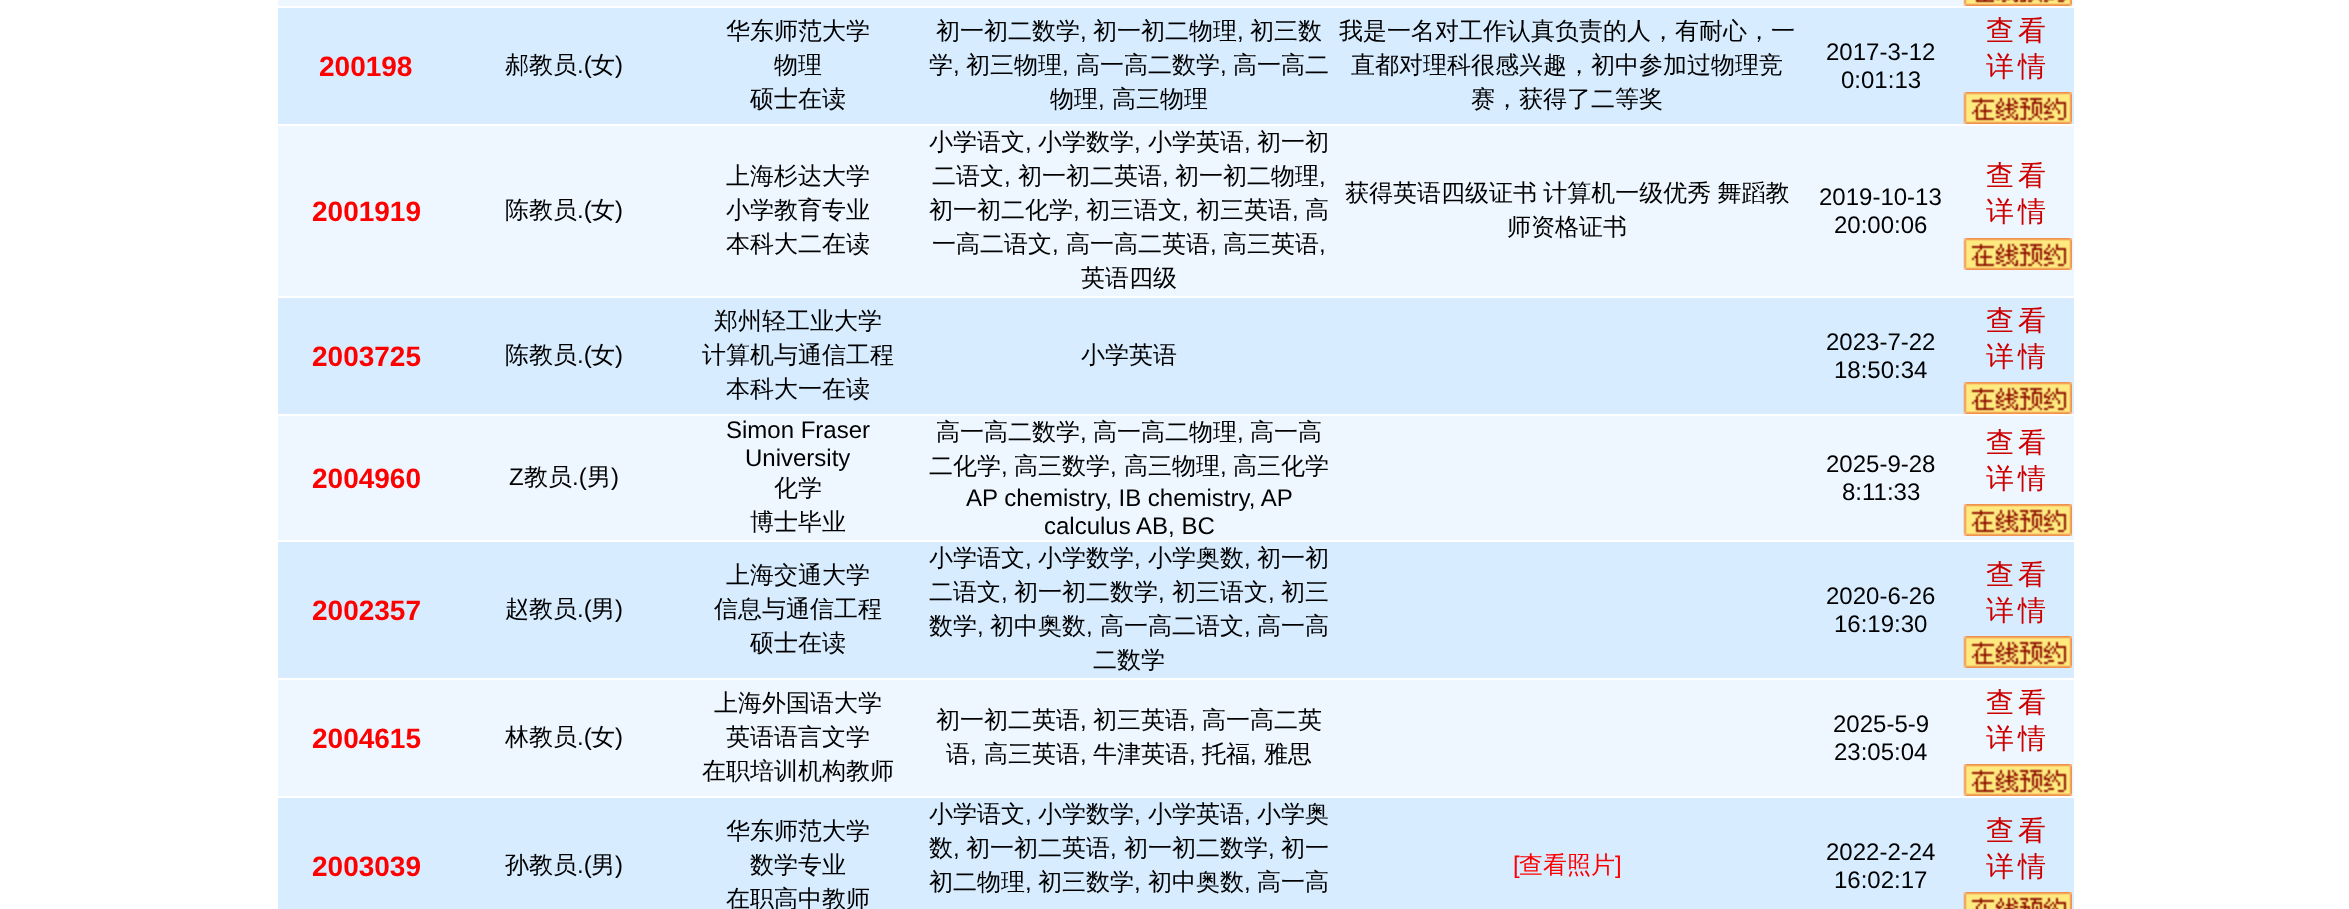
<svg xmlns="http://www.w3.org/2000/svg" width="2349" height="909">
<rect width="100%" height="100%" fill="#fff"/>
<rect x="278" width="1796" height="6" fill="#eef7ff"/>
<image x="1963" y="0" width="109" height="6" href="media/1.png"/>
<rect x="278" y="8" width="1796" height="116" fill="#d7ecff"/>
<text x="319" y="76" style="font-family:Liberation Sans;font-size:28px;font-weight:bold;fill:#f00">200198</text>
<text x="505" y="73" style="font-family:WenQuanYi Zen Hei;font-size:24px;font-weight:500;fill:#000">郝教员</text>
<text x="577" y="73" style="font-family:Liberation Sans;font-size:24px;fill:#000">.(</text>
<text x="591" y="73" style="font-family:WenQuanYi Zen Hei;font-size:24px;font-weight:500;fill:#000">女</text>
<text x="615" y="73" style="font-family:Liberation Sans;font-size:24px;fill:#000">)</text>
<text x="726" y="39" style="font-family:WenQuanYi Zen Hei;font-size:24px;font-weight:500;fill:#000">华东师范大学</text>
<text x="774" y="73" style="font-family:WenQuanYi Zen Hei;font-size:24px;font-weight:500;fill:#000">物理</text>
<text x="750" y="107" style="font-family:WenQuanYi Zen Hei;font-size:24px;font-weight:500;fill:#000">硕士在读</text>
<text x="936" y="39" style="font-family:WenQuanYi Zen Hei;font-size:24px;font-weight:500;fill:#000">初一初二数学</text>
<text x="1080" y="39" style="font-family:Liberation Sans;font-size:24px;fill:#000">,</text>
<text x="1093" y="39" style="font-family:WenQuanYi Zen Hei;font-size:24px;font-weight:500;fill:#000">初一初二物理</text>
<text x="1237" y="39" style="font-family:Liberation Sans;font-size:24px;fill:#000">,</text>
<text x="1250" y="39" style="font-family:WenQuanYi Zen Hei;font-size:24px;font-weight:500;fill:#000">初三数</text>
<text x="929" y="73" style="font-family:WenQuanYi Zen Hei;font-size:24px;font-weight:500;fill:#000">学</text>
<text x="953" y="73" style="font-family:Liberation Sans;font-size:24px;fill:#000">,</text>
<text x="966" y="73" style="font-family:WenQuanYi Zen Hei;font-size:24px;font-weight:500;fill:#000">初三物理</text>
<text x="1062" y="73" style="font-family:Liberation Sans;font-size:24px;fill:#000">,</text>
<text x="1076" y="73" style="font-family:WenQuanYi Zen Hei;font-size:24px;font-weight:500;fill:#000">高一高二数学</text>
<text x="1220" y="73" style="font-family:Liberation Sans;font-size:24px;fill:#000">,</text>
<text x="1233" y="73" style="font-family:WenQuanYi Zen Hei;font-size:24px;font-weight:500;fill:#000">高一高二</text>
<text x="1050" y="107" style="font-family:WenQuanYi Zen Hei;font-size:24px;font-weight:500;fill:#000">物理</text>
<text x="1098" y="107" style="font-family:Liberation Sans;font-size:24px;fill:#000">,</text>
<text x="1112" y="107" style="font-family:WenQuanYi Zen Hei;font-size:24px;font-weight:500;fill:#000">高三物理</text>
<text x="1339" y="39" style="font-family:WenQuanYi Zen Hei;font-size:24px;font-weight:500;fill:#000">我是一名对工作认真负责的人，有耐心，一</text>
<text x="1351" y="73" style="font-family:WenQuanYi Zen Hei;font-size:24px;font-weight:500;fill:#000">直都对理科很感兴趣，初中参加过物理竞</text>
<text x="1471" y="107" style="font-family:WenQuanYi Zen Hei;font-size:24px;font-weight:500;fill:#000">赛，获得了二等奖</text>
<text x="1826" y="60" style="font-family:Liberation Sans;font-size:24px;fill:#000">2017-3-12</text>
<text x="1841" y="88" style="font-family:Liberation Sans;font-size:24px;fill:#000">0:01:13</text>
<text x="1986" y="40" style="font-family:WenQuanYi Zen Hei;font-size:28px;font-weight:500;letter-spacing:4px;fill:#c00">查看</text>
<text x="1986" y="76" style="font-family:WenQuanYi Zen Hei;font-size:28px;font-weight:500;letter-spacing:4px;fill:#c00">详情</text>
<image x="1963" y="92" width="109" height="32" href="media/2.png"/>
<rect x="278" y="126" width="1796" height="170" fill="#eef7ff"/>
<text x="312" y="221" style="font-family:Liberation Sans;font-size:28px;font-weight:bold;fill:#f00">2001919</text>
<text x="505" y="218" style="font-family:WenQuanYi Zen Hei;font-size:24px;font-weight:500;fill:#000">陈教员</text>
<text x="577" y="218" style="font-family:Liberation Sans;font-size:24px;fill:#000">.(</text>
<text x="591" y="218" style="font-family:WenQuanYi Zen Hei;font-size:24px;font-weight:500;fill:#000">女</text>
<text x="615" y="218" style="font-family:Liberation Sans;font-size:24px;fill:#000">)</text>
<text x="726" y="184" style="font-family:WenQuanYi Zen Hei;font-size:24px;font-weight:500;fill:#000">上海杉达大学</text>
<text x="726" y="218" style="font-family:WenQuanYi Zen Hei;font-size:24px;font-weight:500;fill:#000">小学教育专业</text>
<text x="726" y="252" style="font-family:WenQuanYi Zen Hei;font-size:24px;font-weight:500;fill:#000">本科大二在读</text>
<text x="929" y="150" style="font-family:WenQuanYi Zen Hei;font-size:24px;font-weight:500;fill:#000">小学语文</text>
<text x="1025" y="150" style="font-family:Liberation Sans;font-size:24px;fill:#000">,</text>
<text x="1038" y="150" style="font-family:WenQuanYi Zen Hei;font-size:24px;font-weight:500;fill:#000">小学数学</text>
<text x="1134" y="150" style="font-family:Liberation Sans;font-size:24px;fill:#000">,</text>
<text x="1148" y="150" style="font-family:WenQuanYi Zen Hei;font-size:24px;font-weight:500;fill:#000">小学英语</text>
<text x="1244" y="150" style="font-family:Liberation Sans;font-size:24px;fill:#000">,</text>
<text x="1257" y="150" style="font-family:WenQuanYi Zen Hei;font-size:24px;font-weight:500;fill:#000">初一初</text>
<text x="932" y="184" style="font-family:WenQuanYi Zen Hei;font-size:24px;font-weight:500;fill:#000">二语文</text>
<text x="1004" y="184" style="font-family:Liberation Sans;font-size:24px;fill:#000">,</text>
<text x="1018" y="184" style="font-family:WenQuanYi Zen Hei;font-size:24px;font-weight:500;fill:#000">初一初二英语</text>
<text x="1162" y="184" style="font-family:Liberation Sans;font-size:24px;fill:#000">,</text>
<text x="1175" y="184" style="font-family:WenQuanYi Zen Hei;font-size:24px;font-weight:500;fill:#000">初一初二物理</text>
<text x="1319" y="184" style="font-family:Liberation Sans;font-size:24px;fill:#000">,</text>
<text x="929" y="218" style="font-family:WenQuanYi Zen Hei;font-size:24px;font-weight:500;fill:#000">初一初二化学</text>
<text x="1073" y="218" style="font-family:Liberation Sans;font-size:24px;fill:#000">,</text>
<text x="1086" y="218" style="font-family:WenQuanYi Zen Hei;font-size:24px;font-weight:500;fill:#000">初三语文</text>
<text x="1182" y="218" style="font-family:Liberation Sans;font-size:24px;fill:#000">,</text>
<text x="1196" y="218" style="font-family:WenQuanYi Zen Hei;font-size:24px;font-weight:500;fill:#000">初三英语</text>
<text x="1292" y="218" style="font-family:Liberation Sans;font-size:24px;fill:#000">,</text>
<text x="1305" y="218" style="font-family:WenQuanYi Zen Hei;font-size:24px;font-weight:500;fill:#000">高</text>
<text x="932" y="252" style="font-family:WenQuanYi Zen Hei;font-size:24px;font-weight:500;fill:#000">一高二语文</text>
<text x="1052" y="252" style="font-family:Liberation Sans;font-size:24px;fill:#000">,</text>
<text x="1066" y="252" style="font-family:WenQuanYi Zen Hei;font-size:24px;font-weight:500;fill:#000">高一高二英语</text>
<text x="1210" y="252" style="font-family:Liberation Sans;font-size:24px;fill:#000">,</text>
<text x="1223" y="252" style="font-family:WenQuanYi Zen Hei;font-size:24px;font-weight:500;fill:#000">高三英语</text>
<text x="1319" y="252" style="font-family:Liberation Sans;font-size:24px;fill:#000">,</text>
<text x="1081" y="286" style="font-family:WenQuanYi Zen Hei;font-size:24px;font-weight:500;fill:#000">英语四级</text>
<text x="1345" y="201" word-spacing="-1" style="font-family:WenQuanYi Zen Hei;font-size:24px;font-weight:500;fill:#000">获得英语四级证书 计算机一级优秀 舞蹈教</text>
<text x="1507" y="235" style="font-family:WenQuanYi Zen Hei;font-size:24px;font-weight:500;fill:#000">师资格证书</text>
<text x="1819" y="205" style="font-family:Liberation Sans;font-size:24px;fill:#000">2019-10-13</text>
<text x="1834" y="233" style="font-family:Liberation Sans;font-size:24px;fill:#000">20:00:06</text>
<text x="1986" y="185" style="font-family:WenQuanYi Zen Hei;font-size:28px;font-weight:500;letter-spacing:4px;fill:#c00">查看</text>
<text x="1986" y="221" style="font-family:WenQuanYi Zen Hei;font-size:28px;font-weight:500;letter-spacing:4px;fill:#c00">详情</text>
<image x="1963" y="238" width="109" height="32" href="media/3.png"/>
<rect x="278" y="298" width="1796" height="116" fill="#d7ecff"/>
<text x="312" y="366" style="font-family:Liberation Sans;font-size:28px;font-weight:bold;fill:#f00">2003725</text>
<text x="505" y="363" style="font-family:WenQuanYi Zen Hei;font-size:24px;font-weight:500;fill:#000">陈教员</text>
<text x="577" y="363" style="font-family:Liberation Sans;font-size:24px;fill:#000">.(</text>
<text x="591" y="363" style="font-family:WenQuanYi Zen Hei;font-size:24px;font-weight:500;fill:#000">女</text>
<text x="615" y="363" style="font-family:Liberation Sans;font-size:24px;fill:#000">)</text>
<text x="714" y="329" style="font-family:WenQuanYi Zen Hei;font-size:24px;font-weight:500;fill:#000">郑州轻工业大学</text>
<text x="702" y="363" style="font-family:WenQuanYi Zen Hei;font-size:24px;font-weight:500;fill:#000">计算机与通信工程</text>
<text x="726" y="397" style="font-family:WenQuanYi Zen Hei;font-size:24px;font-weight:500;fill:#000">本科大一在读</text>
<text x="1081" y="363" style="font-family:WenQuanYi Zen Hei;font-size:24px;font-weight:500;fill:#000">小学英语</text>
<text x="1826" y="350" style="font-family:Liberation Sans;font-size:24px;fill:#000">2023-7-22</text>
<text x="1834" y="378" style="font-family:Liberation Sans;font-size:24px;fill:#000">18:50:34</text>
<text x="1986" y="330" style="font-family:WenQuanYi Zen Hei;font-size:28px;font-weight:500;letter-spacing:4px;fill:#c00">查看</text>
<text x="1986" y="366" style="font-family:WenQuanYi Zen Hei;font-size:28px;font-weight:500;letter-spacing:4px;fill:#c00">详情</text>
<image x="1963" y="382" width="109" height="32" href="media/2.png"/>
<rect x="278" y="416" width="1796" height="124" fill="#eef7ff"/>
<text x="312" y="488" style="font-family:Liberation Sans;font-size:28px;font-weight:bold;fill:#f00">2004960</text>
<text x="509" y="485" style="font-family:Liberation Sans;font-size:24px;fill:#000">Z</text>
<text x="524" y="485" style="font-family:WenQuanYi Zen Hei;font-size:24px;font-weight:500;fill:#000">教员</text>
<text x="572" y="485" style="font-family:Liberation Sans;font-size:24px;fill:#000">.(</text>
<text x="587" y="485" style="font-family:WenQuanYi Zen Hei;font-size:24px;font-weight:500;fill:#000">男</text>
<text x="611" y="485" style="font-family:Liberation Sans;font-size:24px;fill:#000">)</text>
<text x="726" y="438" style="font-family:Liberation Sans;font-size:24px;fill:#000">Simon Fraser</text>
<text x="745" y="466" style="font-family:Liberation Sans;font-size:24px;fill:#000">University</text>
<text x="774" y="496" style="font-family:WenQuanYi Zen Hei;font-size:24px;font-weight:500;fill:#000">化学</text>
<text x="750" y="530" style="font-family:WenQuanYi Zen Hei;font-size:24px;font-weight:500;fill:#000">博士毕业</text>
<text x="936" y="440" style="font-family:WenQuanYi Zen Hei;font-size:24px;font-weight:500;fill:#000">高一高二数学</text>
<text x="1080" y="440" style="font-family:Liberation Sans;font-size:24px;fill:#000">,</text>
<text x="1093" y="440" style="font-family:WenQuanYi Zen Hei;font-size:24px;font-weight:500;fill:#000">高一高二物理</text>
<text x="1237" y="440" style="font-family:Liberation Sans;font-size:24px;fill:#000">,</text>
<text x="1250" y="440" style="font-family:WenQuanYi Zen Hei;font-size:24px;font-weight:500;fill:#000">高一高</text>
<text x="929" y="474" style="font-family:WenQuanYi Zen Hei;font-size:24px;font-weight:500;fill:#000">二化学</text>
<text x="1001" y="474" style="font-family:Liberation Sans;font-size:24px;fill:#000">,</text>
<text x="1014" y="474" style="font-family:WenQuanYi Zen Hei;font-size:24px;font-weight:500;fill:#000">高三数学</text>
<text x="1110" y="474" style="font-family:Liberation Sans;font-size:24px;fill:#000">,</text>
<text x="1124" y="474" style="font-family:WenQuanYi Zen Hei;font-size:24px;font-weight:500;fill:#000">高三物理</text>
<text x="1220" y="474" style="font-family:Liberation Sans;font-size:24px;fill:#000">,</text>
<text x="1233" y="474" style="font-family:WenQuanYi Zen Hei;font-size:24px;font-weight:500;fill:#000">高三化学</text>
<text x="966" y="506" style="font-family:Liberation Sans;font-size:24px;fill:#000">AP chemistry, IB chemistry, AP</text>
<text x="1044" y="534" style="font-family:Liberation Sans;font-size:24px;fill:#000">calculus AB, BC</text>
<text x="1826" y="472" style="font-family:Liberation Sans;font-size:24px;fill:#000">2025-9-28</text>
<text x="1842" y="500" style="font-family:Liberation Sans;font-size:24px;fill:#000">8:11:33</text>
<text x="1986" y="452" style="font-family:WenQuanYi Zen Hei;font-size:28px;font-weight:500;letter-spacing:4px;fill:#c00">查看</text>
<text x="1986" y="488" style="font-family:WenQuanYi Zen Hei;font-size:28px;font-weight:500;letter-spacing:4px;fill:#c00">详情</text>
<image x="1963" y="504" width="109" height="32" href="media/3.png"/>
<rect x="278" y="542" width="1796" height="136" fill="#d7ecff"/>
<text x="312" y="620" style="font-family:Liberation Sans;font-size:28px;font-weight:bold;fill:#f00">2002357</text>
<text x="505" y="617" style="font-family:WenQuanYi Zen Hei;font-size:24px;font-weight:500;fill:#000">赵教员</text>
<text x="577" y="617" style="font-family:Liberation Sans;font-size:24px;fill:#000">.(</text>
<text x="591" y="617" style="font-family:WenQuanYi Zen Hei;font-size:24px;font-weight:500;fill:#000">男</text>
<text x="615" y="617" style="font-family:Liberation Sans;font-size:24px;fill:#000">)</text>
<text x="726" y="583" style="font-family:WenQuanYi Zen Hei;font-size:24px;font-weight:500;fill:#000">上海交通大学</text>
<text x="714" y="617" style="font-family:WenQuanYi Zen Hei;font-size:24px;font-weight:500;fill:#000">信息与通信工程</text>
<text x="750" y="651" style="font-family:WenQuanYi Zen Hei;font-size:24px;font-weight:500;fill:#000">硕士在读</text>
<text x="929" y="566" style="font-family:WenQuanYi Zen Hei;font-size:24px;font-weight:500;fill:#000">小学语文</text>
<text x="1025" y="566" style="font-family:Liberation Sans;font-size:24px;fill:#000">,</text>
<text x="1038" y="566" style="font-family:WenQuanYi Zen Hei;font-size:24px;font-weight:500;fill:#000">小学数学</text>
<text x="1134" y="566" style="font-family:Liberation Sans;font-size:24px;fill:#000">,</text>
<text x="1148" y="566" style="font-family:WenQuanYi Zen Hei;font-size:24px;font-weight:500;fill:#000">小学奥数</text>
<text x="1244" y="566" style="font-family:Liberation Sans;font-size:24px;fill:#000">,</text>
<text x="1257" y="566" style="font-family:WenQuanYi Zen Hei;font-size:24px;font-weight:500;fill:#000">初一初</text>
<text x="929" y="600" style="font-family:WenQuanYi Zen Hei;font-size:24px;font-weight:500;fill:#000">二语文</text>
<text x="1001" y="600" style="font-family:Liberation Sans;font-size:24px;fill:#000">,</text>
<text x="1014" y="600" style="font-family:WenQuanYi Zen Hei;font-size:24px;font-weight:500;fill:#000">初一初二数学</text>
<text x="1158" y="600" style="font-family:Liberation Sans;font-size:24px;fill:#000">,</text>
<text x="1172" y="600" style="font-family:WenQuanYi Zen Hei;font-size:24px;font-weight:500;fill:#000">初三语文</text>
<text x="1268" y="600" style="font-family:Liberation Sans;font-size:24px;fill:#000">,</text>
<text x="1281" y="600" style="font-family:WenQuanYi Zen Hei;font-size:24px;font-weight:500;fill:#000">初三</text>
<text x="929" y="634" style="font-family:WenQuanYi Zen Hei;font-size:24px;font-weight:500;fill:#000">数学</text>
<text x="977" y="634" style="font-family:Liberation Sans;font-size:24px;fill:#000">,</text>
<text x="990" y="634" style="font-family:WenQuanYi Zen Hei;font-size:24px;font-weight:500;fill:#000">初中奥数</text>
<text x="1086" y="634" style="font-family:Liberation Sans;font-size:24px;fill:#000">,</text>
<text x="1100" y="634" style="font-family:WenQuanYi Zen Hei;font-size:24px;font-weight:500;fill:#000">高一高二语文</text>
<text x="1244" y="634" style="font-family:Liberation Sans;font-size:24px;fill:#000">,</text>
<text x="1257" y="634" style="font-family:WenQuanYi Zen Hei;font-size:24px;font-weight:500;fill:#000">高一高</text>
<text x="1093" y="668" style="font-family:WenQuanYi Zen Hei;font-size:24px;font-weight:500;fill:#000">二数学</text>
<text x="1826" y="604" style="font-family:Liberation Sans;font-size:24px;fill:#000">2020-6-26</text>
<text x="1834" y="632" style="font-family:Liberation Sans;font-size:24px;fill:#000">16:19:30</text>
<text x="1986" y="584" style="font-family:WenQuanYi Zen Hei;font-size:28px;font-weight:500;letter-spacing:4px;fill:#c00">查看</text>
<text x="1986" y="620" style="font-family:WenQuanYi Zen Hei;font-size:28px;font-weight:500;letter-spacing:4px;fill:#c00">详情</text>
<image x="1963" y="636" width="109" height="32" href="media/2.png"/>
<rect x="278" y="680" width="1796" height="116" fill="#eef7ff"/>
<text x="312" y="748" style="font-family:Liberation Sans;font-size:28px;font-weight:bold;fill:#f00">2004615</text>
<text x="505" y="745" style="font-family:WenQuanYi Zen Hei;font-size:24px;font-weight:500;fill:#000">林教员</text>
<text x="577" y="745" style="font-family:Liberation Sans;font-size:24px;fill:#000">.(</text>
<text x="591" y="745" style="font-family:WenQuanYi Zen Hei;font-size:24px;font-weight:500;fill:#000">女</text>
<text x="615" y="745" style="font-family:Liberation Sans;font-size:24px;fill:#000">)</text>
<text x="714" y="711" style="font-family:WenQuanYi Zen Hei;font-size:24px;font-weight:500;fill:#000">上海外国语大学</text>
<text x="726" y="745" style="font-family:WenQuanYi Zen Hei;font-size:24px;font-weight:500;fill:#000">英语语言文学</text>
<text x="702" y="779" style="font-family:WenQuanYi Zen Hei;font-size:24px;font-weight:500;fill:#000">在职培训机构教师</text>
<text x="936" y="728" style="font-family:WenQuanYi Zen Hei;font-size:24px;font-weight:500;fill:#000">初一初二英语</text>
<text x="1080" y="728" style="font-family:Liberation Sans;font-size:24px;fill:#000">,</text>
<text x="1093" y="728" style="font-family:WenQuanYi Zen Hei;font-size:24px;font-weight:500;fill:#000">初三英语</text>
<text x="1189" y="728" style="font-family:Liberation Sans;font-size:24px;fill:#000">,</text>
<text x="1202" y="728" style="font-family:WenQuanYi Zen Hei;font-size:24px;font-weight:500;fill:#000">高一高二英</text>
<text x="946" y="762" style="font-family:WenQuanYi Zen Hei;font-size:24px;font-weight:500;fill:#000">语</text>
<text x="970" y="762" style="font-family:Liberation Sans;font-size:24px;fill:#000">,</text>
<text x="984" y="762" style="font-family:WenQuanYi Zen Hei;font-size:24px;font-weight:500;fill:#000">高三英语</text>
<text x="1080" y="762" style="font-family:Liberation Sans;font-size:24px;fill:#000">,</text>
<text x="1093" y="762" style="font-family:WenQuanYi Zen Hei;font-size:24px;font-weight:500;fill:#000">牛津英语</text>
<text x="1189" y="762" style="font-family:Liberation Sans;font-size:24px;fill:#000">,</text>
<text x="1202" y="762" style="font-family:WenQuanYi Zen Hei;font-size:24px;font-weight:500;fill:#000">托福</text>
<text x="1250" y="762" style="font-family:Liberation Sans;font-size:24px;fill:#000">,</text>
<text x="1264" y="762" style="font-family:WenQuanYi Zen Hei;font-size:24px;font-weight:500;fill:#000">雅思</text>
<text x="1833" y="732" style="font-family:Liberation Sans;font-size:24px;fill:#000">2025-5-9</text>
<text x="1834" y="760" style="font-family:Liberation Sans;font-size:24px;fill:#000">23:05:04</text>
<text x="1986" y="712" style="font-family:WenQuanYi Zen Hei;font-size:28px;font-weight:500;letter-spacing:4px;fill:#c00">查看</text>
<text x="1986" y="748" style="font-family:WenQuanYi Zen Hei;font-size:28px;font-weight:500;letter-spacing:4px;fill:#c00">详情</text>
<image x="1963" y="764" width="109" height="32" href="media/3.png"/>
<rect x="278" y="798" width="1796" height="111" fill="#d7ecff"/>
<text x="312" y="876" style="font-family:Liberation Sans;font-size:28px;font-weight:bold;fill:#f00">2003039</text>
<text x="505" y="873" style="font-family:WenQuanYi Zen Hei;font-size:24px;font-weight:500;fill:#000">孙教员</text>
<text x="577" y="873" style="font-family:Liberation Sans;font-size:24px;fill:#000">.(</text>
<text x="591" y="873" style="font-family:WenQuanYi Zen Hei;font-size:24px;font-weight:500;fill:#000">男</text>
<text x="615" y="873" style="font-family:Liberation Sans;font-size:24px;fill:#000">)</text>
<text x="726" y="839" style="font-family:WenQuanYi Zen Hei;font-size:24px;font-weight:500;fill:#000">华东师范大学</text>
<text x="750" y="873" style="font-family:WenQuanYi Zen Hei;font-size:24px;font-weight:500;fill:#000">数学专业</text>
<text x="726" y="907" style="font-family:WenQuanYi Zen Hei;font-size:24px;font-weight:500;fill:#000">在职高中教师</text>
<text x="929" y="822" style="font-family:WenQuanYi Zen Hei;font-size:24px;font-weight:500;fill:#000">小学语文</text>
<text x="1025" y="822" style="font-family:Liberation Sans;font-size:24px;fill:#000">,</text>
<text x="1038" y="822" style="font-family:WenQuanYi Zen Hei;font-size:24px;font-weight:500;fill:#000">小学数学</text>
<text x="1134" y="822" style="font-family:Liberation Sans;font-size:24px;fill:#000">,</text>
<text x="1148" y="822" style="font-family:WenQuanYi Zen Hei;font-size:24px;font-weight:500;fill:#000">小学英语</text>
<text x="1244" y="822" style="font-family:Liberation Sans;font-size:24px;fill:#000">,</text>
<text x="1257" y="822" style="font-family:WenQuanYi Zen Hei;font-size:24px;font-weight:500;fill:#000">小学奥</text>
<text x="929" y="856" style="font-family:WenQuanYi Zen Hei;font-size:24px;font-weight:500;fill:#000">数</text>
<text x="953" y="856" style="font-family:Liberation Sans;font-size:24px;fill:#000">,</text>
<text x="966" y="856" style="font-family:WenQuanYi Zen Hei;font-size:24px;font-weight:500;fill:#000">初一初二英语</text>
<text x="1110" y="856" style="font-family:Liberation Sans;font-size:24px;fill:#000">,</text>
<text x="1124" y="856" style="font-family:WenQuanYi Zen Hei;font-size:24px;font-weight:500;fill:#000">初一初二数学</text>
<text x="1268" y="856" style="font-family:Liberation Sans;font-size:24px;fill:#000">,</text>
<text x="1281" y="856" style="font-family:WenQuanYi Zen Hei;font-size:24px;font-weight:500;fill:#000">初一</text>
<text x="929" y="890" style="font-family:WenQuanYi Zen Hei;font-size:24px;font-weight:500;fill:#000">初二物理</text>
<text x="1025" y="890" style="font-family:Liberation Sans;font-size:24px;fill:#000">,</text>
<text x="1038" y="890" style="font-family:WenQuanYi Zen Hei;font-size:24px;font-weight:500;fill:#000">初三数学</text>
<text x="1134" y="890" style="font-family:Liberation Sans;font-size:24px;fill:#000">,</text>
<text x="1148" y="890" style="font-family:WenQuanYi Zen Hei;font-size:24px;font-weight:500;fill:#000">初中奥数</text>
<text x="1244" y="890" style="font-family:Liberation Sans;font-size:24px;fill:#000">,</text>
<text x="1257" y="890" style="font-family:WenQuanYi Zen Hei;font-size:24px;font-weight:500;fill:#000">高一高</text>
<text x="1513" y="873" style="font-family:Liberation Sans;font-size:24px;fill:#f00">[</text>
<text x="1519" y="873" style="font-family:WenQuanYi Zen Hei;font-size:24px;font-weight:500;fill:#f00">查看照片</text>
<text x="1615" y="873" style="font-family:Liberation Sans;font-size:24px;fill:#f00">]</text>
<text x="1826" y="860" style="font-family:Liberation Sans;font-size:24px;fill:#000">2022-2-24</text>
<text x="1834" y="888" style="font-family:Liberation Sans;font-size:24px;fill:#000">16:02:17</text>
<text x="1986" y="840" style="font-family:WenQuanYi Zen Hei;font-size:28px;font-weight:500;letter-spacing:4px;fill:#c00">查看</text>
<text x="1986" y="876" style="font-family:WenQuanYi Zen Hei;font-size:28px;font-weight:500;letter-spacing:4px;fill:#c00">详情</text>
<image x="1963" y="892" width="109" height="17" href="media/4.png"/>
</svg>
